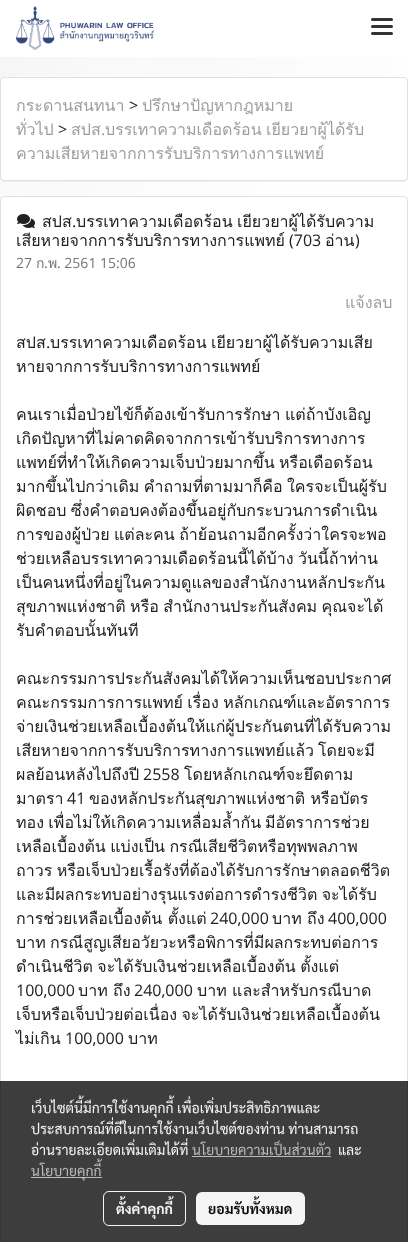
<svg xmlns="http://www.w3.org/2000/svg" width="408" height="1242">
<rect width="100%" height="100%" fill="#fff"/>
<image x="0" y="57" width="408" height="143" href="media/1.png"/>
<image x="16" y="6" width="138" height="44" href="media/2.png"/>
<rect x="371" y="25" width="22" height="3" rx="1.5" fill="#333"/>
<rect x="371" y="18" width="22" height="3" rx="1.5" fill="#333"/>
<rect x="371" y="32" width="22" height="3" rx="1.5" fill="#333"/>
<rect y="78" width="408" height="104" rx="4" fill="#0000000d" filter="blur(0.5px)"/>
<rect x="0.5" y="77.5" width="407" height="103" rx="3.5" fill="#fff" stroke="#dee2e6"/>
<text x="16" y="111" style="font-family:Loma;font-size:16px;fill:#9e9e9e">กระดานสนทนา</text>
<text x="129" y="111" style="font-family:Open Sans;font-size:16px;fill:#212121">&gt;</text>
<text x="142" y="111" style="font-family:Loma;font-size:16px;fill:#9e9e9e">ปรึกษาปัญหากฎหมาย</text>
<text x="16" y="135" style="font-family:Loma;font-size:16px;fill:#9e9e9e">ทั่วไป</text>
<text x="58" y="135" style="font-family:Open Sans;font-size:16px;fill:#212121">&gt;</text>
<text x="71" y="135" style="font-family:Loma;font-size:16px;fill:#9e9e9e">สปส</text>
<text x="105" y="135" word-spacing="-1" style="font-family:Loma;font-size:16px;fill:#9e9e9e">บรรเทาความเดือดร้อน เยียวยาผู้ได้รับ</text>
<text x="101" y="135" style="font-family:Open Sans;font-size:16px;fill:#9e9e9e">.</text>
<text x="16" y="159" style="font-family:Loma;font-size:16px;fill:#9e9e9e">ความเสียหายจากการรับบริการทางการแพทย์</text>
<rect x="0.5" y="196.5" width="407" height="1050" rx="3.5" fill="#fff" stroke="#dee2e6"/>
<image x="17" y="214" width="18" height="14" href="media/3.png"/>
<text x="42" y="227" style="font-family:Loma;font-size:16px;fill:#212121">สปส</text>
<text x="72" y="227" style="font-family:Open Sans;font-size:16px;fill:#212121">.</text>
<text x="76" y="227" word-spacing="-1" style="font-family:Loma;font-size:16px;fill:#212121">บรรเทาความเดือดร้อน เยียวยาผู้ได้รับความ</text>
<text x="16" y="246" style="font-family:Loma;font-size:16px;fill:#212121">เสียหายจากการรับบริการทางการแพทย์</text>
<text x="289" y="246" style="font-family:Open Sans;font-size:16px;fill:#212121">(703</text>
<text x="325" y="246" style="font-family:Loma;font-size:16px;fill:#212121">อ่าน</text>
<text x="355" y="246" style="font-family:Open Sans;font-size:16px;fill:#212121">)</text>
<text x="16" y="268" style="font-family:Open Sans;font-size:14px;fill:#757575">27</text>
<text x="36" y="268" style="font-family:Loma;font-size:14px;fill:#757575">ก</text>
<text x="44" y="268" style="font-family:Open Sans;font-size:14px;fill:#757575">.</text>
<text x="48" y="268" style="font-family:Loma;font-size:14px;fill:#757575">พ</text>
<text x="57" y="268" style="font-family:Open Sans;font-size:14px;fill:#757575">. 2561 15:06</text>
<text x="345" y="308" style="font-family:Loma;font-size:16px;fill:#9e9e9e">แจ้งลบ</text>
<text x="16" y="348" style="font-family:Loma;font-size:16px;fill:#212121">สปส</text>
<text x="46" y="348" style="font-family:Open Sans;font-size:16px;fill:#212121">.</text>
<text x="50" y="348" word-spacing="-1" style="font-family:Loma;font-size:16px;fill:#212121">บรรเทาความเดือดร้อน เยียวยาผู้ได้รับความเสีย</text>
<text x="16" y="372" style="font-family:Loma;font-size:16px;fill:#212121">หายจากการรับบริการทางการแพทย์</text>
<text x="16" y="420" word-spacing="-1" style="font-family:Loma;font-size:16px;fill:#212121">คนเราเมื่อป่วยไข้ก็ต้องเข้ารับการรักษา แต่ถ้าบังเอิญ</text>
<text x="16" y="444" style="font-family:Loma;font-size:16px;fill:#212121">เกิดปัญหาที่ไม่คาดคิดจากการเข้ารับบริการทางการ</text>
<text x="16" y="468" word-spacing="-1" style="font-family:Loma;font-size:16px;fill:#212121">แพทย์ที่ทำให้เกิดความเจ็บป่วยมากขึ้น หรือเดือดร้อน</text>
<text x="16" y="492" word-spacing="-1" style="font-family:Loma;font-size:16px;fill:#212121">มากขึ้นไปกว่าเดิม คำถามที่ตามมาก็คือ ใครจะเป็นผู้รับ</text>
<text x="16" y="516" word-spacing="-1" style="font-family:Loma;font-size:16px;fill:#212121">ผิดชอบ ซึ่งคำตอบคงต้องขึ้นอยู่กับกระบวนการดำเนิน</text>
<text x="16" y="540" style="font-family:Loma;font-size:16px;fill:#212121">การของผู้ป่วย</text>
<text x="114" y="540" word-spacing="-1" style="font-family:Loma;font-size:16px;fill:#212121">แต่ละคน ถ้าย้อนถามอีกครั้งว่าใครจะพอ</text>
<text x="16" y="564" word-spacing="-1" style="font-family:Loma;font-size:16px;fill:#212121">ช่วยเหลือบรรเทาความเดือดร้อนนี้ได้บ้าง วันนี้ถ้าท่าน</text>
<text x="16" y="588" style="font-family:Loma;font-size:16px;fill:#212121">เป็นคนหนึ่งที่อยู่ในความดูแลของสำนักงานหลักประกัน</text>
<text x="16" y="612" word-spacing="-1" style="font-family:Loma;font-size:16px;fill:#212121">สุขภาพแห่งชาติ หรือ สำนักงานประกันสังคม คุณจะได้</text>
<text x="16" y="636" style="font-family:Loma;font-size:16px;fill:#212121">รับคำตอบนั้นทันที</text>
<text x="16" y="684" style="font-family:Loma;font-size:16px;fill:#212121">คณะกรรมการประกันสังคมได้ให้ความเห็นชอบประกาศ</text>
<text x="16" y="708" word-spacing="-1" style="font-family:Loma;font-size:16px;fill:#212121">คณะกรรมการการแพทย์ เรื่อง หลักเกณฑ์และอัตราการ</text>
<text x="16" y="732" style="font-family:Loma;font-size:16px;fill:#212121">จ่ายเงินช่วยเหลือเบื้องต้นให้แก่ผู้ประกันตนที่ได้รับความ</text>
<text x="16" y="756" style="font-family:Loma;font-size:16px;fill:#212121">เสียหายจากการรับบริการทางการแพทย์แล้ว</text>
<text x="318" y="756" style="font-family:Loma;font-size:16px;fill:#212121">โดยจะมี</text>
<text x="16" y="780" style="font-family:Loma;font-size:16px;fill:#212121">ผลย้อนหลังไปถึงปี</text>
<text x="143" y="780" style="font-family:Open Sans;font-size:16px;fill:#212121">2558</text>
<text x="184" y="780" style="font-family:Loma;font-size:16px;fill:#212121">โดยหลักเกณฑ์จะยึดตาม</text>
<text x="16" y="804" style="font-family:Loma;font-size:16px;fill:#212121">มาตรา</text>
<text x="67" y="804" style="font-family:Open Sans;font-size:16px;fill:#212121">41</text>
<text x="89" y="804" style="font-family:Loma;font-size:16px;fill:#212121">ของหลักประกันสุขภาพแห่งชาติ หรือบัตร</text>
<text x="16" y="828" word-spacing="-1" style="font-family:Loma;font-size:16px;fill:#212121">ทอง เพื่อไม่ให้เกิดความเหลื่อมล้ำกัน</text>
<text x="265" y="828" style="font-family:Loma;font-size:16px;fill:#212121">มีอัตราการช่วย</text>
<text x="16" y="852" word-spacing="-1" style="font-family:Loma;font-size:16px;fill:#212121">เหลือเบื้องต้น แบ่งเป็น กรณีเสียชีวิตหรือทุพพลภาพ</text>
<text x="16" y="876" word-spacing="-1" style="font-family:Loma;font-size:16px;fill:#212121">ถาวร หรือเจ็บป่วยเรื้อรังที่ต้องได้รับการรักษาตลอดชีวิต</text>
<text x="16" y="900" word-spacing="-1" style="font-family:Loma;font-size:16px;fill:#212121">และมีผลกระทบอย่างรุนแรงต่อการดำรงชีวิต จะได้รับ</text>
<text x="16" y="924" style="font-family:Loma;font-size:16px;fill:#212121">การช่วยเหลือเบื้องต้น ตั้งแต่</text>
<text x="210" y="924" style="font-family:Open Sans;font-size:16px;fill:#212121">240,000</text>
<text x="272" y="924" style="font-family:Loma;font-size:16px;fill:#212121">บาท ถึง</text>
<text x="328" y="924" style="font-family:Open Sans;font-size:16px;fill:#212121">400,000</text>
<text x="16" y="948" word-spacing="-1" style="font-family:Loma;font-size:16px;fill:#212121">บาท กรณีสูญเสียอวัยวะหรือพิการที่มีผลกระทบต่อการ</text>
<text x="16" y="972" word-spacing="-1" style="font-family:Loma;font-size:16px;fill:#212121">ดำเนินชีวิต จะได้รับเงินช่วยเหลือเบื้องต้น ตั้งแต่</text>
<text x="16" y="996" style="font-family:Open Sans;font-size:16px;fill:#212121">100,000</text>
<text x="78" y="996" style="font-family:Loma;font-size:16px;fill:#212121">บาท ถึง</text>
<text x="134" y="996" style="font-family:Open Sans;font-size:16px;fill:#212121">240,000</text>
<text x="197" y="996" style="font-family:Loma;font-size:16px;fill:#212121">บาท และสำหรับกรณีบาด</text>
<text x="16" y="1020" word-spacing="-1" style="font-family:Loma;font-size:16px;fill:#212121">เจ็บหรือเจ็บป่วยต่อเนื่อง จะได้รับเงินช่วยเหลือเบื้องต้น</text>
<text x="16" y="1044" style="font-family:Loma;font-size:16px;fill:#212121">ไม่เกิน</text>
<text x="65" y="1044" style="font-family:Open Sans;font-size:16px;fill:#212121">100,000</text>
<text x="128" y="1044" style="font-family:Loma;font-size:16px;fill:#212121">บาท</text>
<rect y="1081" width="408" height="161" fill="#000000c2"/>
<text x="31" y="1113" style="font-family:Sarabun;font-size:14px;fill:#f5f5f5">เว็บไซต์นี้มีการใช้งานคุกกี้ เพื่อเพิ่มประสิทธิภาพและ</text>
<text x="31" y="1134" style="font-family:Sarabun;font-size:14px;fill:#f5f5f5">ประสบการณ์ที่ดีในการใช้งานเว็บไซต์ของท่าน ท่านสามารถ</text>
<text x="31" y="1155" style="font-family:Sarabun;font-size:14px;fill:#f5f5f5">อ่านรายละเอียดเพิ่มเติมได้ที่</text>
<text x="192" y="1155" style="font-family:Sarabun;font-size:14px;fill:#bbb">นโยบายความเป็นส่วนตัว</text>
<rect x="192" y="1156" width="139" height="1" fill="#c2c2c2f2"/>
<text x="338" y="1155" style="font-family:Sarabun;font-size:14px;fill:#f5f5f5">และ</text>
<rect x="31" y="1177" width="71" height="1" fill="#c2c2c2f2"/>
<text x="31" y="1176" style="font-family:Sarabun;font-size:14px;fill:#bbb">นโยบายคุกกี้</text>
<rect x="103.5" y="1191.5" width="82" height="34" rx="5.5" fill="none" stroke="#fffffff2"/>
<text x="116" y="1214" style="font-family:Sarabun;font-size:14px;font-weight:bold;fill:#f5f5f5">ตั้งค่าคุกกี้</text>
<rect x="196" y="1192" width="109" height="33" rx="6" fill="#fffffff2"/>
<text x="208" y="1214" style="font-family:Sarabun;font-size:14px;font-weight:bold;fill:#0c0c0c">ยอมรับทั้งหมด</text>
</svg>
